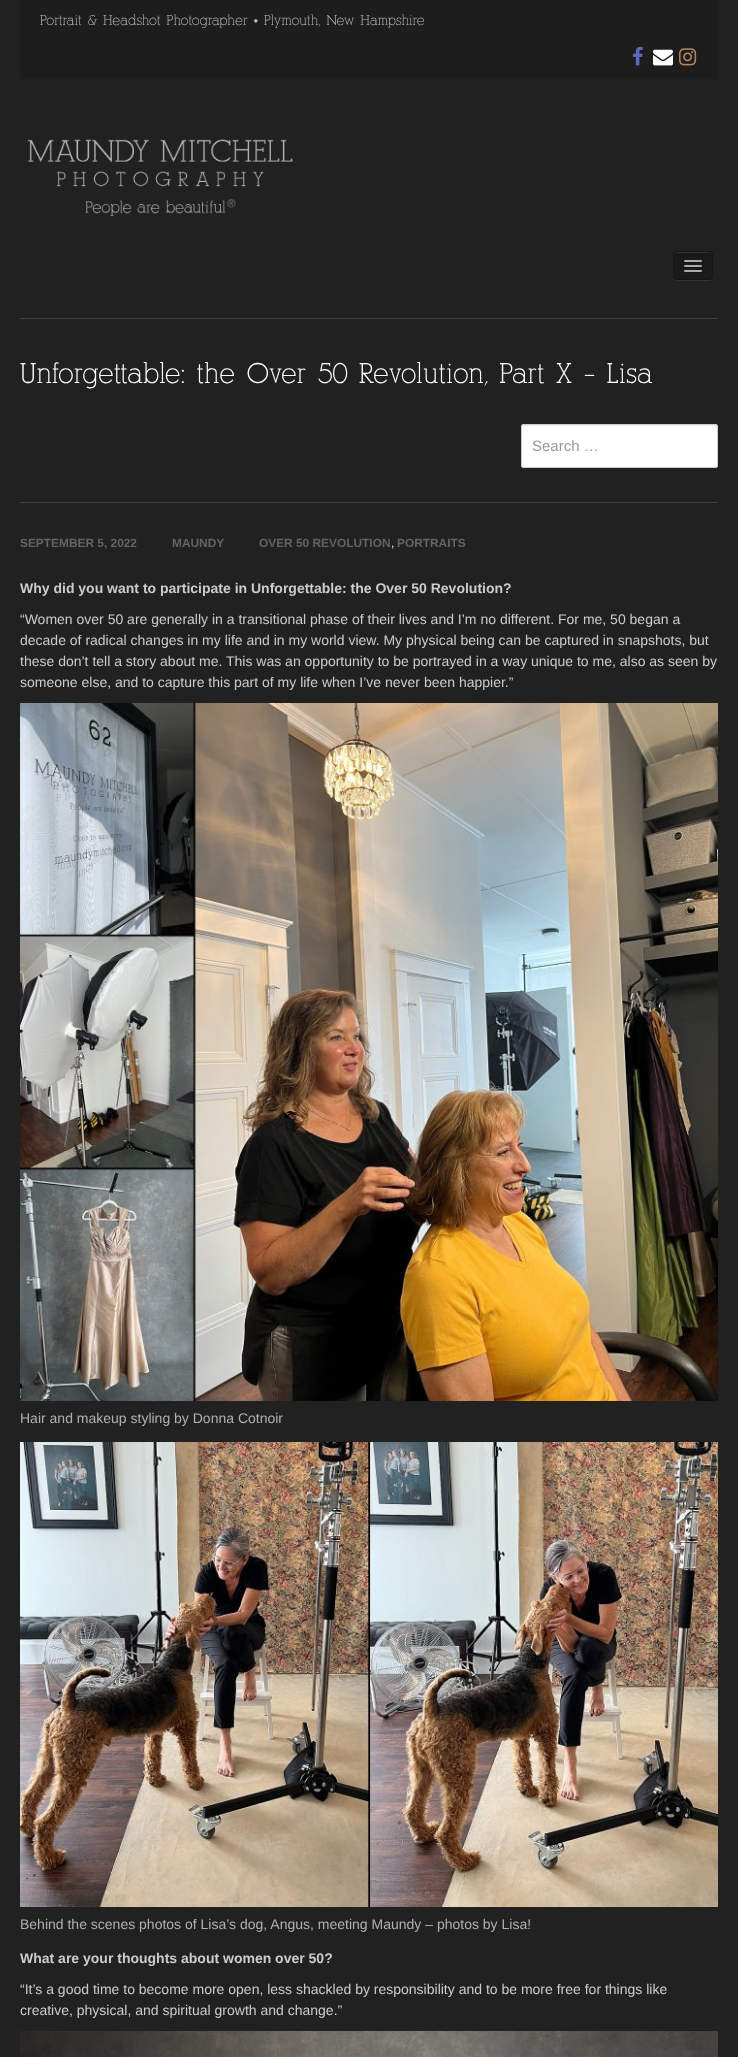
<svg xmlns="http://www.w3.org/2000/svg" width="738" height="2057">
<rect width="100%" height="100%" fill="#212121"/>
<rect x="20" width="698" height="79" fill="#1d1d1d"/>
<text x="40" y="25" word-spacing="1" style="font-family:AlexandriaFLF;font-size:14px;font-weight:500;fill:#bbb">Portrait &amp; Headshot Photographer • Plymouth, New Hampshire</text>
<image x="633" y="46" width="10" height="20" href="media/1.png"/>
<image x="653" y="49" width="20" height="17" href="media/2.png"/>
<image x="679" y="48" width="18" height="18" href="media/3.png"/>
<image x="27" y="139" width="266" height="77" href="media/4.png"/>
<path d="M673 276c0 6 5 5 9 5h22c4 0 9 1 9-5c0 2-2 4-4 4h-32c-2 0-4-2-4-4z" fill="#323232"/>
<rect x="673" y="251" width="40" height="29" rx="4" fill="#1a1a1a"/>
<path d="M677 253h32c2 0 3 1 3 3c0-5-4-4-8.5-4h-21c-4.5 0-8.5-1-8.5 4c0-2 1-3 3-3z" fill="#313131"/>
<path d="M711.5 278.5c-.5 .5-1.5 1-2.5 1h-32c-1 0-2-.5-2.5-1" fill="none" stroke="#00000040"/>
<path d="M674.5 278.5c-.5-.5-1-1.5-1-2.5v-21c0-1 .5-2 1-2.5c.5-.5 1.5-1 2.5-1h32c1 0 2 .5 2.5 1c.5 .5 1 1.5 1 2.5v21c0 1-.5 2-1 2.5" fill="none" stroke="#0000001a"/>
<path d="M684 261.5c-1 2 3.5 1.5 3.5 1.5h11c0 0 4.5 .5 3.5-1.5c-1 1-7.5 .5-9 .5c-1.5 0-8 .5-9-.5z" fill="#141414"/>
<rect x="684" y="260" width="18" height="2" rx="1" fill="#aaa"/>
<path d="M684 266.5c-1 2 3.5 1.5 3.5 1.5h11c0 0 4.5 .5 3.5-1.5c-1 1-7.5 .5-9 .5c-1.5 0-8 .5-9-.5z" fill="#141414"/>
<rect x="684" y="265" width="18" height="2" rx="1" fill="#aaa"/>
<path d="M684 271.5c-1 2 3.5 1.5 3.5 1.5h11c0 0 4.5 .5 3.5-1.5c-1 1-7.5 .5-9 .5c-1.5 0-8 .5-9-.5z" fill="#141414"/>
<rect x="684" y="270" width="18" height="2" rx="1" fill="#aaa"/>
<rect x="20" y="318" width="698" height="1" fill="#3d3d3d"/>
<rect x="20" y="502" width="698" height="1" fill="#3d3d3d"/>
<text x="20" y="383" word-spacing="1.5" style="font-family:AlexandriaFLF;font-size:28px;font-weight:500;fill:#fff">Unforgettable: the Over 50 Revolution, Part X – Lisa</text>
<rect x="521" y="424" width="197" height="44" rx="3" fill="#fff"/>
<path d="M524 426h191l2 1v1v-1c0-1-1-2-2-2h-191c-1 0-2 1-2 2v1c0-1 1-2 2-2z" fill="#ececec"/>
<rect x="521.5" y="424.5" width="196" height="43" rx="2.5" fill="none" stroke="#ccc"/>
<text x="532" y="451" style="font-family:Liberation Sans;font-size:15px;fill:#999">Search …</text>
<text x="20" y="547" style="font-family:Liberation Sans;font-size:11.9px;font-weight:bold;fill:#646464">SEPTEMBER 5, 2022</text>
<text x="172" y="547" style="font-family:Liberation Sans;font-size:11.9px;font-weight:bold;fill:#646464">MAUNDY</text>
<text x="259" y="547" style="font-family:Liberation Sans;font-size:11.9px;font-weight:bold;fill:#646464">OVER 50 REVOLUTION</text>
<text x="391" y="547" style="font-family:Liberation Sans;font-size:11.9px;fill:#e6e6e6">,</text>
<text x="397" y="547" style="font-family:Liberation Sans;font-size:11.9px;font-weight:bold;fill:#646464">PORTRAITS</text>
<text x="20" y="593" style="font-family:Liberation Sans;font-size:14px;font-weight:bold;fill:#ccc">Why did you want to participate in Unforgettable: the Over 50 Revolution?</text>
<text x="20" y="624" style="font-family:Liberation Sans;font-size:14px;fill:#ccc">“Women over 50 are generally in a transitional phase of their lives and I’m no different. For me, 50 began a</text>
<text x="20" y="645" style="font-family:Liberation Sans;font-size:14px;fill:#ccc">decade of radical changes in my life and in my world view. My physical being can be captured in snapshots, but</text>
<text x="20" y="666" style="font-family:Liberation Sans;font-size:14px;fill:#ccc">these don’t tell a story about me. This was an opportunity to be portrayed in a way unique to me, also as seen by</text>
<text x="20" y="687" style="font-family:Liberation Sans;font-size:14px;fill:#ccc">someone else, and to capture this part of my life when I’ve never been happier.”</text>
<image x="20" y="703" width="698" height="698" href="media/5.png"/>
<text x="20" y="1423" style="font-family:Liberation Sans;font-size:14px;fill:#acb3af">Hair and makeup styling by Donna Cotnoir</text>
<image x="20" y="1442" width="698" height="465" href="media/6.png"/>
<text x="20" y="1929" style="font-family:Liberation Sans;font-size:14px;fill:#acb3af">Behind the scenes photos of Lisa’s dog, Angus, meeting Maundy – photos by Lisa!</text>
<text x="20" y="1963" style="font-family:Liberation Sans;font-size:14px;font-weight:bold;fill:#ccc">What are your thoughts about women over 50?</text>
<text x="20" y="1994" style="font-family:Liberation Sans;font-size:14px;fill:#ccc">“It’s a good time to become more open, less shackled by responsibility and to be more free for things like</text>
<text x="20" y="2015" style="font-family:Liberation Sans;font-size:14px;fill:#ccc">creative, physical, and spiritual growth and change.”</text>
<image x="20" y="2031" width="698" height="26" href="media/7.png"/>
</svg>
